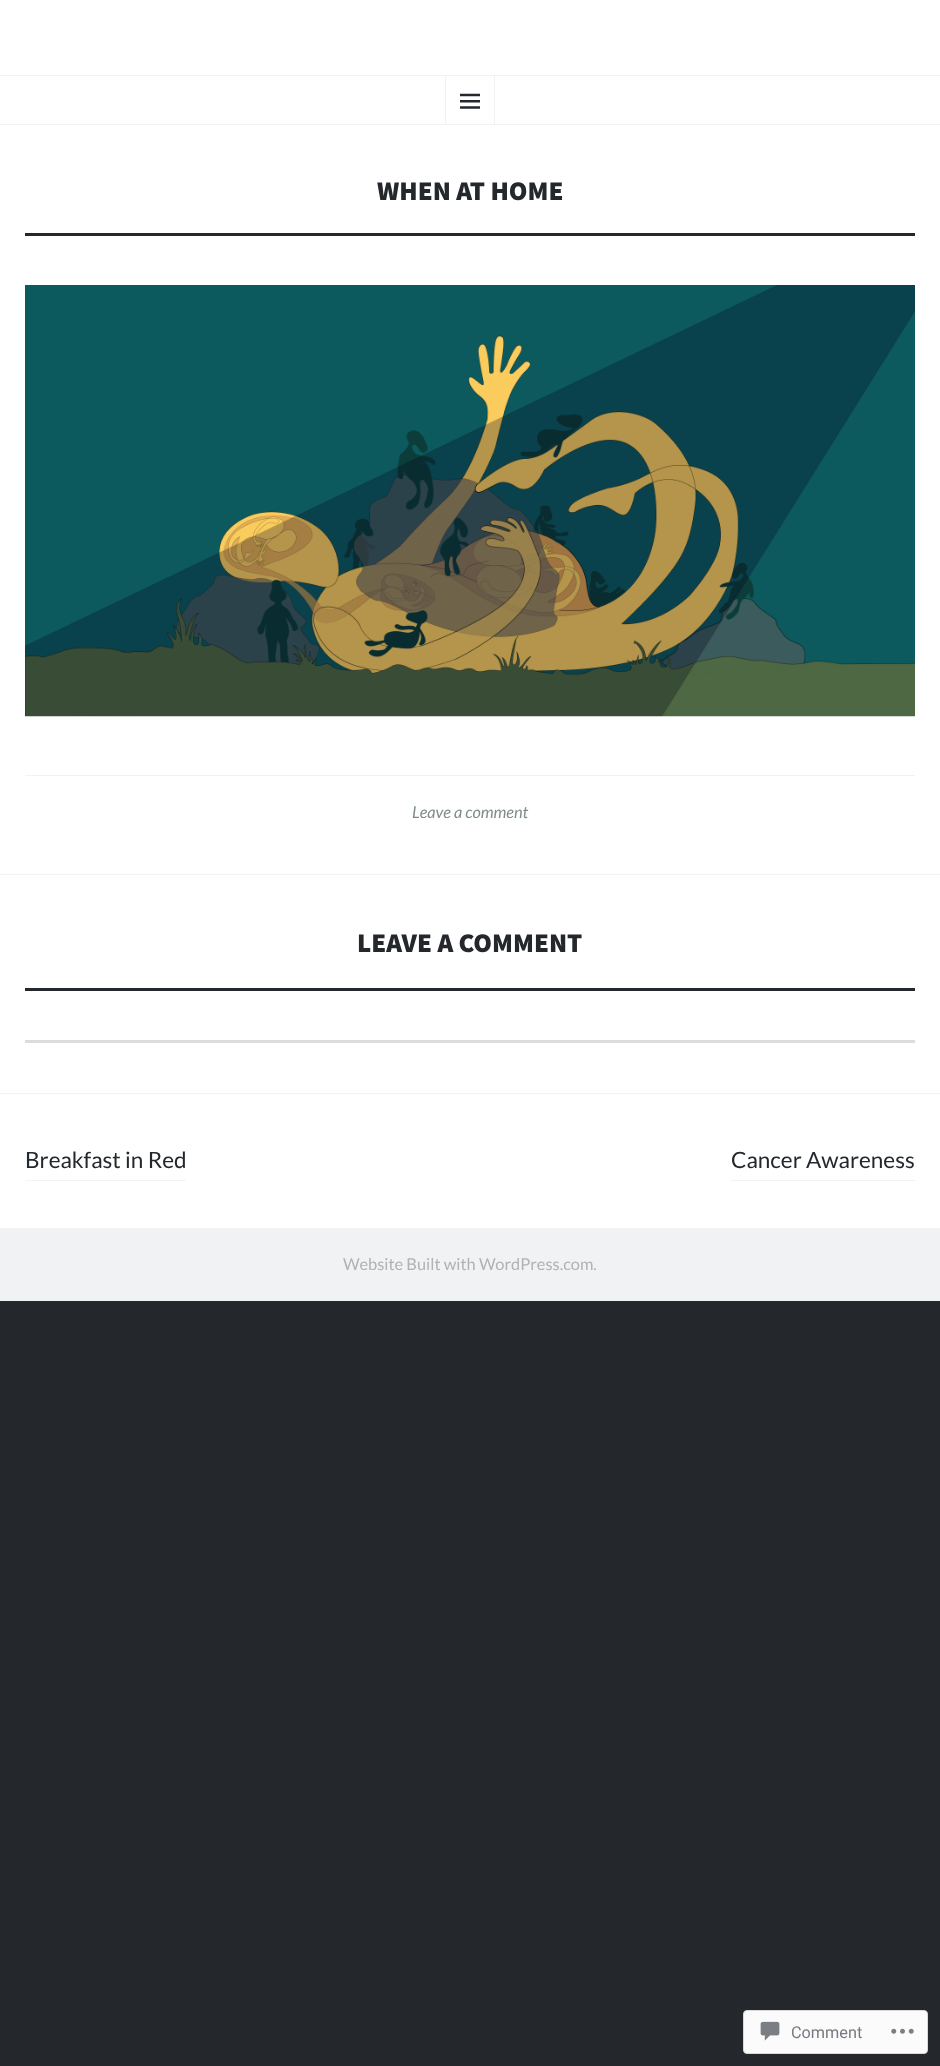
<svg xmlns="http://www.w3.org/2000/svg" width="940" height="2066">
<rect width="100%" height="100%" fill="#24282d"/>
<rect width="940" height="1228" fill="#fff"/>
<rect y="75" width="940" height="1" fill="#f1f2f3"/>
<rect y="124" width="940" height="1" fill="#f1f2f3"/>
<rect x="445.5" y="75.5" width="49" height="49" fill="none" stroke="#f1f2f3"/>
<image x="460" y="93" width="20" height="16" href="media/1.png"/>
<text x="377" y="200" style="font-family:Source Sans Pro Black;font-size:27px;font-weight:900;fill:#24282d">WHEN AT HOME</text>
<rect x="25" y="233" width="890" height="3" fill="#24282d"/>
<image x="25" y="285" width="890" height="432" href="media/2.png"/>
<rect x="25" y="775" width="890" height="1" fill="#f1f2f3"/>
<text x="412" y="818" style="font-family:Lato;font-size:16.4px;font-style:italic;fill:#7f8d8c">Leave a comment</text>
<rect y="874" width="940" height="1" fill="#f1f2f3"/>
<text x="357" y="952" style="font-family:Source Sans Pro Black;font-size:27px;font-weight:900;fill:#24282d">LEAVE A COMMENT</text>
<rect x="25" y="988" width="890" height="3" fill="#24282d"/>
<rect x="25" y="1040" width="890" height="3" fill="#dcdcde"/>
<rect y="1093" width="940" height="1" fill="#f1f2f3"/>
<text x="25" y="1168" style="font-family:Lato;font-size:22.5px;fill:#24282d">Breakfast in Red</text>
<rect x="25" y="1180" width="161" height="1" fill="#f1f2f3"/>
<text x="731" y="1168" style="font-family:Lato;font-size:22.5px;fill:#24282d">Cancer Awareness</text>
<rect x="731" y="1180" width="184" height="1" fill="#f1f2f3"/>
<rect y="1228" width="940" height="73" fill="#f1f2f3"/>
<text x="343" y="1270" style="font-family:Lato;font-size:16.4px;fill:#b1b2b3">Website Built with WordPress.com.</text>
<rect x="743.5" y="2010.5" width="184" height="43" rx="3.5" fill="#fbfbfb" stroke="#d8d8da"/>
<image x="760" y="2021" width="20" height="20" href="media/3.png"/>
<text x="791" y="2038" style="font-family:Roboto;font-size:16.25px;fill:#767a80">Comment</text>
<image x="891" y="2028" width="23" height="6" href="media/4.png"/>
</svg>
